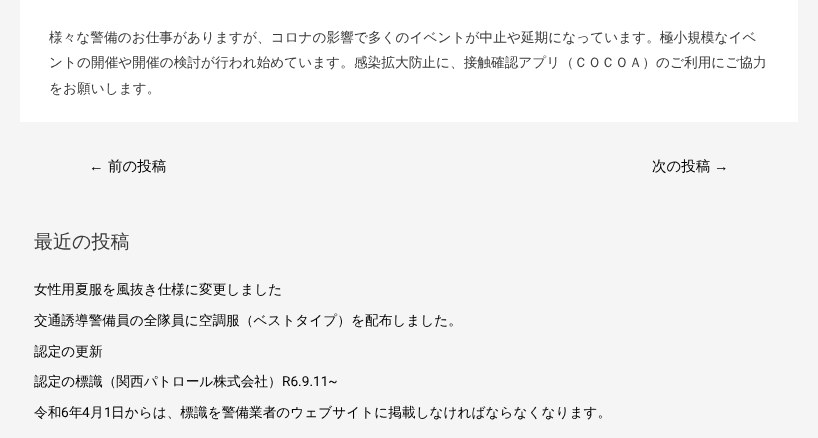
<svg xmlns="http://www.w3.org/2000/svg" width="818" height="438">
<rect width="100%" height="100%" fill="#f5f5f5"/>
<rect x="20" width="778" height="122" fill="#fff"/>
<text x="49" y="42" style="font-family:WenQuanYi Zen Hei;font-size:13.68px;font-weight:500;fill:#3a3a3a">様々な警備のお仕事がありますが、コロナの影響で多くのイベントが中止や延期になっています。極小規模なイベ</text>
<text x="49" y="67" style="font-family:WenQuanYi Zen Hei;font-size:13.68px;font-weight:500;fill:#3a3a3a">ントの開催や開催の検討が行われ始めています。感染拡大防止に、接触確認アプリ（ＣＯＣＯＡ）のご利用にご協力</text>
<text x="49" y="93" style="font-family:WenQuanYi Zen Hei;font-size:13.68px;font-weight:500;fill:#3a3a3a">をお願いします。</text>
<text x="89" y="171" style="font-family:Liberation Sans;font-size:14.5px;fill:#000">←</text>
<text x="108" y="171" style="font-family:WenQuanYi Zen Hei;font-size:14.5px;font-weight:500;fill:#000">前の投稿</text>
<text x="652" y="171" style="font-family:WenQuanYi Zen Hei;font-size:14.5px;font-weight:500;fill:#000">次の投稿</text>
<text x="714" y="171" style="font-family:Liberation Sans;font-size:14.5px;fill:#000">→</text>
<text x="34" y="248" style="font-family:WenQuanYi Zen Hei;font-size:19px;font-weight:500;fill:#3a3a3a">最近の投稿</text>
<text x="34" y="294" style="font-family:WenQuanYi Zen Hei;font-size:13.68px;font-weight:500;fill:#000">女性用夏服を風抜き仕様に変更しました</text>
<text x="34" y="325" style="font-family:WenQuanYi Zen Hei;font-size:13.68px;font-weight:500;fill:#000">交通誘導警備員の全隊員に空調服（ベストタイプ）を配布しました。</text>
<text x="34" y="356" style="font-family:WenQuanYi Zen Hei;font-size:13.68px;font-weight:500;fill:#000">認定の更新</text>
<text x="34" y="386" style="font-family:WenQuanYi Zen Hei;font-size:13.68px;font-weight:500;fill:#000">認定の標識（関西パトロール株式会社）</text>
<text x="282" y="386" style="font-family:Roboto;font-size:13.68px;fill:#000">R6.9.11~</text>
<text x="34" y="417" style="font-family:WenQuanYi Zen Hei;font-size:13.68px;font-weight:500;fill:#000">令和</text>
<text x="61" y="417" style="font-family:Roboto;font-size:13.68px;fill:#000">6</text>
<text x="69" y="417" style="font-family:WenQuanYi Zen Hei;font-size:13.68px;font-weight:500;fill:#000">年</text>
<text x="82" y="417" style="font-family:Roboto;font-size:13.68px;fill:#000">4</text>
<text x="90" y="417" style="font-family:WenQuanYi Zen Hei;font-size:13.68px;font-weight:500;fill:#000">月</text>
<text x="104" y="417" style="font-family:Roboto;font-size:13.68px;fill:#000">1</text>
<text x="111" y="417" style="font-family:WenQuanYi Zen Hei;font-size:13.68px;font-weight:500;fill:#000">日からは、標識を警備業者のウェブサイトに掲載しなければならなくなります。</text>
</svg>
